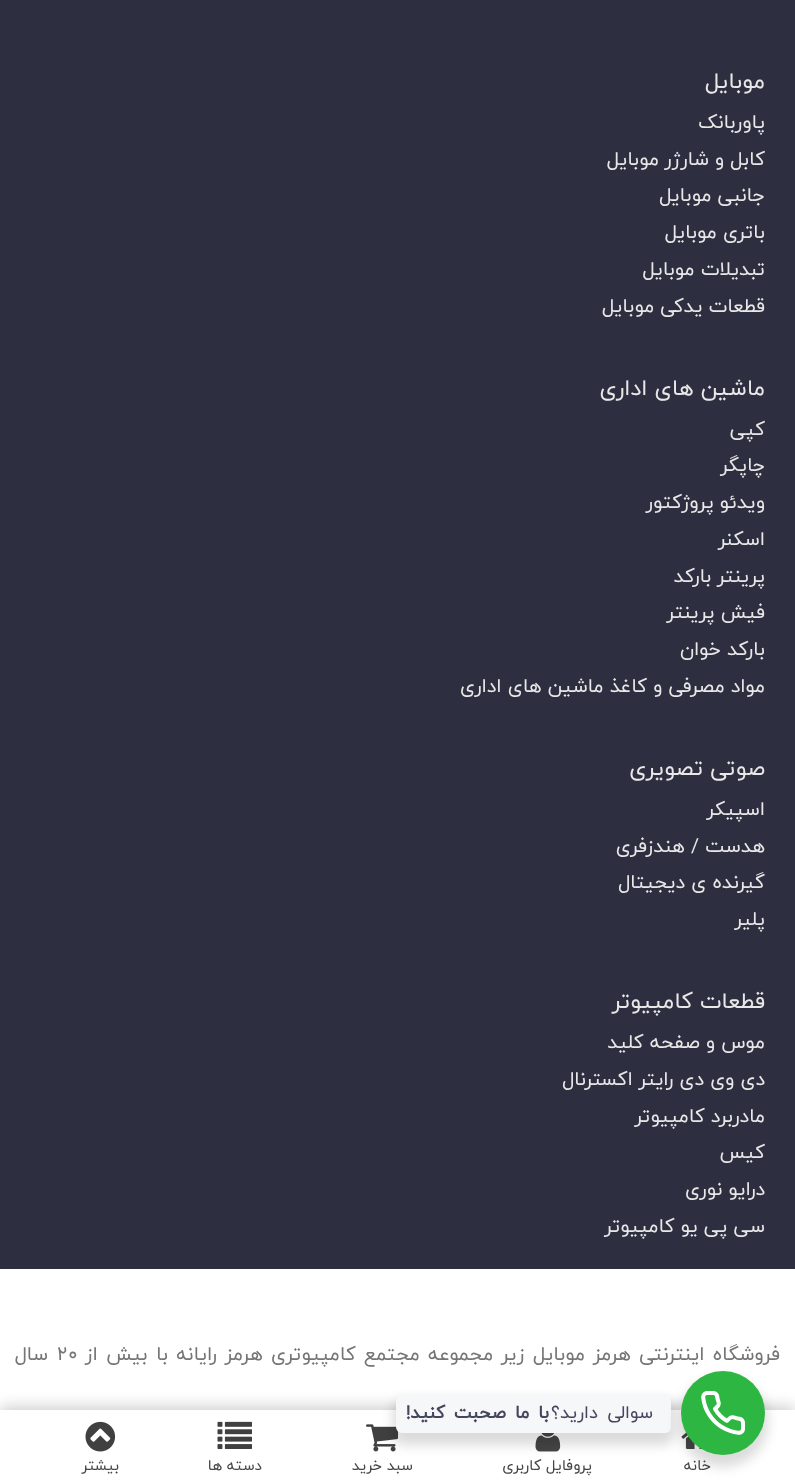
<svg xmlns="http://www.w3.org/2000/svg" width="795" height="1484">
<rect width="100%" height="100%" fill="#2d2f40"/>
<text x="765" y="88" style="font-family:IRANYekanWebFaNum;font-size:22.5px;direction:rtl;fill:#e8e8e8">موبایل</text>
<text x="765" y="128" style="font-family:IRANYekanWebFaNum;font-size:19.5px;direction:rtl;fill:#e8e8e8">پاوربانک</text>
<text x="765" y="165" style="font-family:IRANYekanWebFaNum;font-size:19.5px;direction:rtl;fill:#e8e8e8">کابل و شارژر موبایل</text>
<text x="765" y="201" style="font-family:IRANYekanWebFaNum;font-size:19.5px;direction:rtl;fill:#e8e8e8">جانبی موبایل</text>
<text x="765" y="238" style="font-family:IRANYekanWebFaNum;font-size:19.5px;direction:rtl;fill:#e8e8e8">باتری موبایل</text>
<text x="765" y="275" style="font-family:IRANYekanWebFaNum;font-size:19.5px;direction:rtl;fill:#e8e8e8">تبدیلات موبایل</text>
<text x="765" y="312" style="font-family:IRANYekanWebFaNum;font-size:19.5px;direction:rtl;fill:#e8e8e8">قطعات یدکی موبایل</text>
<text x="765" y="395" style="font-family:IRANYekanWebFaNum;font-size:22.5px;direction:rtl;fill:#e8e8e8">ماشین های اداری</text>
<text x="765" y="435" style="font-family:IRANYekanWebFaNum;font-size:19.5px;direction:rtl;fill:#e8e8e8">کپی</text>
<text x="765" y="471" style="font-family:IRANYekanWebFaNum;font-size:19.5px;direction:rtl;fill:#e8e8e8">چاپگر</text>
<text x="765" y="508" style="font-family:IRANYekanWebFaNum;font-size:19.5px;direction:rtl;fill:#e8e8e8">ویدئو پروژکتور</text>
<text x="765" y="545" style="font-family:IRANYekanWebFaNum;font-size:19.5px;direction:rtl;fill:#e8e8e8">اسکنر</text>
<text x="765" y="582" style="font-family:IRANYekanWebFaNum;font-size:19.5px;direction:rtl;fill:#e8e8e8">پرینتر بارکد</text>
<text x="765" y="618" style="font-family:IRANYekanWebFaNum;font-size:19.5px;direction:rtl;fill:#e8e8e8">فیش پرینتر</text>
<text x="765" y="655" style="font-family:IRANYekanWebFaNum;font-size:19.5px;direction:rtl;fill:#e8e8e8">بارکد خوان</text>
<text x="765" y="692" style="font-family:IRANYekanWebFaNum;font-size:19.5px;direction:rtl;fill:#e8e8e8">مواد مصرفی و کاغذ ماشین های اداری</text>
<text x="765" y="775" style="font-family:IRANYekanWebFaNum;font-size:22.5px;direction:rtl;fill:#e8e8e8">صوتی تصویری</text>
<text x="765" y="815" style="font-family:IRANYekanWebFaNum;font-size:19.5px;direction:rtl;fill:#e8e8e8">اسپیکر</text>
<text x="765" y="852" style="font-family:IRANYekanWebFaNum;font-size:19.5px;direction:rtl;fill:#e8e8e8">هدست / هندزفری</text>
<text x="765" y="888" style="font-family:IRANYekanWebFaNum;font-size:19.5px;direction:rtl;fill:#e8e8e8">گیرنده ی دیجیتال</text>
<text x="765" y="925" style="font-family:IRANYekanWebFaNum;font-size:19.5px;direction:rtl;fill:#e8e8e8">پلیر</text>
<text x="765" y="1008" style="font-family:IRANYekanWebFaNum;font-size:22.5px;direction:rtl;fill:#e8e8e8">قطعات کامپیوتر</text>
<text x="765" y="1048" style="font-family:IRANYekanWebFaNum;font-size:19.5px;direction:rtl;fill:#e8e8e8">موس و صفحه کلید</text>
<text x="765" y="1085" style="font-family:IRANYekanWebFaNum;font-size:19.5px;direction:rtl;fill:#e8e8e8">دی وی دی رایتر اکسترنال</text>
<text x="765" y="1122" style="font-family:IRANYekanWebFaNum;font-size:19.5px;direction:rtl;fill:#e8e8e8">مادربرد کامپیوتر</text>
<text x="765" y="1158" style="font-family:IRANYekanWebFaNum;font-size:19.5px;direction:rtl;fill:#e8e8e8">کیس</text>
<text x="765" y="1195" style="font-family:IRANYekanWebFaNum;font-size:19.5px;direction:rtl;fill:#e8e8e8">درایو نوری</text>
<text x="765" y="1232" style="font-family:IRANYekanWebFaNum;font-size:19.5px;direction:rtl;fill:#e8e8e8">سی پی یو کامپیوتر</text>
<rect y="1269" width="795" height="141" fill="#fff"/>
<text x="780" y="1360" word-spacing="2.25" style="font-family:IRANYekanWebFaNum;font-size:19.5px;direction:rtl;fill:#757575">فروشگاه اینترنتی هرمز موبایل زیر مجموعه مجتمع کامپیوتری هرمز رایانه با بیش از</text>
<text x="57" y="1360" style="font-family:IRANYekanWebFaNum;font-size:19.5px;fill:#757575">20</text>
<text x="48" y="1360" style="font-family:IRANYekanWebFaNum;font-size:19.5px;direction:rtl;fill:#757575">سال</text>
<rect y="1407" width="795" height="75" fill="#00000033" filter="blur(7.5px)"/>
<rect y="1410" width="795" height="74" fill="#fff"/>
<image x="681" y="1432" width="21" height="17" href="media/1.png"/>
<text x="711" y="1470" style="font-family:IRANYekanWebFaNum;font-size:15px;direction:rtl;fill:#454545">خانه</text>
<image x="535" y="1433" width="26" height="19" href="media/2.png"/>
<text x="592" y="1470" style="font-family:IRANYekanWebFaNum;font-size:15px;direction:rtl;fill:#454545">پروفایل کاربری</text>
<image x="366" y="1424" width="33" height="28" href="media/3.png"/>
<text x="413" y="1470" style="font-family:IRANYekanWebFaNum;font-size:15px;direction:rtl;fill:#454545">سبد خرید</text>
<image x="217" y="1421" width="35" height="28" href="media/4.png"/>
<text x="262" y="1470" style="font-family:IRANYekanWebFaNum;font-size:15px;direction:rtl;fill:#454545">دسته ها</text>
<image x="85" y="1421" width="31" height="31" href="media/5.png"/>
<text x="119" y="1470" style="font-family:IRANYekanWebFaNum;font-size:15px;direction:rtl;fill:#454545">بیشتر</text>
<rect x="393" y="1400" width="281" height="45" rx="9" fill="#00000024" filter="blur(6px)"/>
<rect x="396" y="1394" width="275" height="39" rx="6" fill="#f5f7f9"/>
<rect x="678" y="1377" width="90" height="90" rx="45" fill="#00000024" filter="blur(6px)"/>
<circle cx="723" cy="1413" r="42" fill="#2db742"/>
<image x="701" y="1391" width="44" height="44" href="media/6.png"/>
<text x="653" y="1418" word-spacing="4" style="font-family:IRANYekanWebFaNum;font-size:18px;letter-spacing:-0.5px;direction:rtl;fill:#43475e">سوالی دارید؟</text>
<text x="549" y="1418" word-spacing="3" style="font-family:IRANYekanWebFaNum;font-size:18px;font-weight:bold;letter-spacing:-0.5px;direction:rtl;fill:#43475e">با ما صحبت کنید!</text>
</svg>
